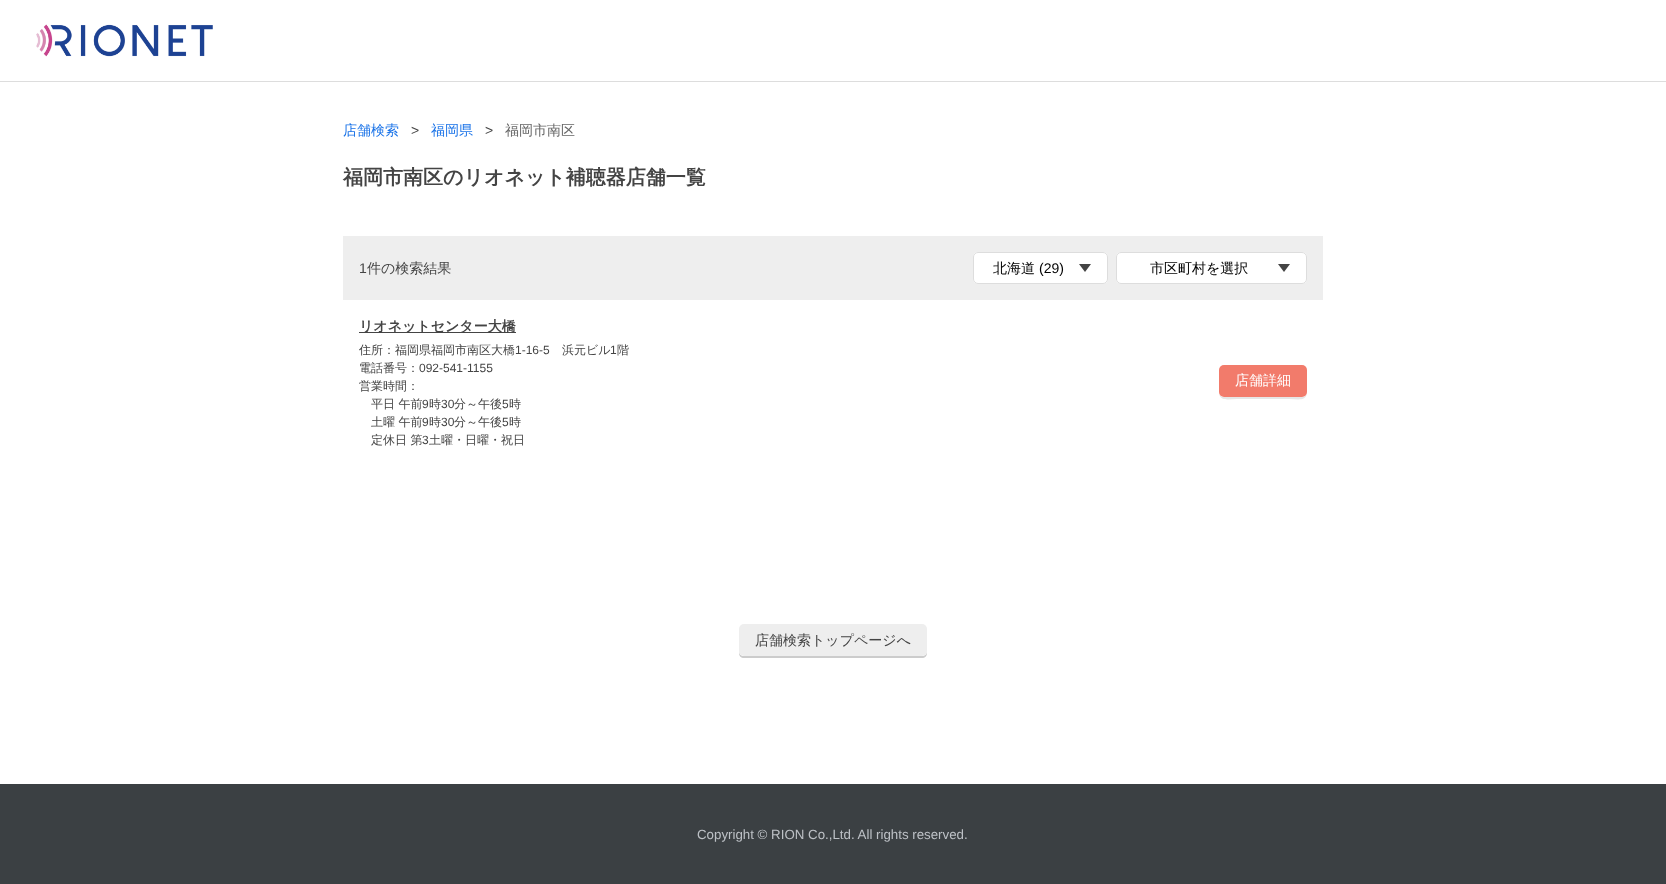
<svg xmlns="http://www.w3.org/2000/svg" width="1666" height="884">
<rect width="100%" height="100%" fill="#fff"/>
<rect y="81" width="1666" height="1" fill="#ddd"/>
<image x="36" y="24" width="177" height="33" href="media/1.png"/>
<text x="343" y="135" style="font-family:WenQuanYi Zen Hei;font-size:14px;font-weight:500;fill:#1a73e8">店舗検索</text>
<text x="411" y="135" style="font-family:Liberation Sans;font-size:14px;fill:#444">&gt;</text>
<text x="431" y="135" style="font-family:WenQuanYi Zen Hei;font-size:14px;font-weight:500;fill:#1a73e8">福岡県</text>
<text x="485" y="135" style="font-family:Liberation Sans;font-size:14px;fill:#444">&gt;</text>
<text x="505" y="135" style="font-family:WenQuanYi Zen Hei;font-size:14px;font-weight:500;fill:#666">福岡市南区</text>
<text x="343" y="184" style="font-family:WenQuanYi Zen Hei;font-size:20px;font-weight:bold;fill:#444">福岡市南区のリオネット補聴器店舗一覧</text>
<rect x="343" y="236" width="980" height="64" fill="#eee"/>
<text x="359" y="273" style="font-family:Liberation Sans;font-size:14px;fill:#444">1</text>
<text x="367" y="273" style="font-family:WenQuanYi Zen Hei;font-size:14px;font-weight:500;fill:#444">件の検索結果</text>
<rect x="973" y="252" width="135" height="32" rx="5" fill="#fff"/>
<path d="M1085 272l6-8h-12z" fill="#444" fill-rule="evenodd"/>
<rect x="973.5" y="252.5" width="134" height="31" rx="4.5" fill="none" stroke="#ddd"/>
<text x="993" y="273" style="font-family:WenQuanYi Zen Hei;font-size:14px;font-weight:500;fill:#000">北海道</text>
<text x="1039" y="273" style="font-family:Liberation Sans;font-size:14px;fill:#000">(29)</text>
<rect x="1116" y="252" width="191" height="32" rx="5" fill="#fff"/>
<path d="M1284 272l6-8h-12z" fill="#444" fill-rule="evenodd"/>
<rect x="1116.5" y="252.5" width="190" height="31" rx="4.5" fill="none" stroke="#ddd"/>
<text x="1150" y="273" style="font-family:WenQuanYi Zen Hei;font-size:14px;font-weight:500;fill:#000">市区町村を選択</text>
<rect x="359" y="332" width="157" height="1" fill="#444"/>
<text x="359" y="331" style="font-family:WenQuanYi Zen Hei;font-size:14px;font-weight:bold;fill:#444">リオネットセンター大橋</text>
<text x="359" y="354" style="font-family:WenQuanYi Zen Hei;font-size:12px;font-weight:500;fill:#444">住所：福岡県福岡市南区大橋</text>
<text x="515" y="354" style="font-family:Liberation Sans;font-size:12px;fill:#444">1-16-5</text>
<text x="562" y="354" style="font-family:WenQuanYi Zen Hei;font-size:12px;font-weight:500;fill:#444">浜元ビル</text>
<text x="610" y="354" style="font-family:Liberation Sans;font-size:12px;fill:#444">1</text>
<text x="617" y="354" style="font-family:WenQuanYi Zen Hei;font-size:12px;font-weight:500;fill:#444">階</text>
<text x="359" y="372" style="font-family:WenQuanYi Zen Hei;font-size:12px;font-weight:500;fill:#444">電話番号：</text>
<text x="419" y="372" style="font-family:Liberation Sans;font-size:12px;fill:#444">092-541-1155</text>
<text x="359" y="390" style="font-family:WenQuanYi Zen Hei;font-size:12px;font-weight:500;fill:#444">営業時間：</text>
<path d="M1219 392c0 10 10 7 18 7h52c8 0 18 3 18-7c0 3-2 5-5 5h-78c-3 0-5-2-5-5z" fill="#e6e6e6"/>
<rect x="1219" y="365" width="88" height="32" rx="5" fill="#f27b6b"/>
<text x="1235" y="385" style="font-family:WenQuanYi Zen Hei;font-size:14px;font-weight:500;fill:#fff">店舗詳細</text>
<text x="371" y="408" style="font-family:WenQuanYi Zen Hei;font-size:12px;font-weight:500;fill:#444">平日 午前</text>
<text x="422" y="408" style="font-family:Liberation Sans;font-size:12px;fill:#444">9</text>
<text x="429" y="408" style="font-family:WenQuanYi Zen Hei;font-size:12px;font-weight:500;fill:#444">時</text>
<text x="441" y="408" style="font-family:Liberation Sans;font-size:12px;fill:#444">30</text>
<text x="454" y="408" style="font-family:WenQuanYi Zen Hei;font-size:12px;font-weight:500;fill:#444">分～午後</text>
<text x="502" y="408" style="font-family:Liberation Sans;font-size:12px;fill:#444">5</text>
<text x="509" y="408" style="font-family:WenQuanYi Zen Hei;font-size:12px;font-weight:500;fill:#444">時</text>
<text x="371" y="426" style="font-family:WenQuanYi Zen Hei;font-size:12px;font-weight:500;fill:#444">土曜 午前</text>
<text x="422" y="426" style="font-family:Liberation Sans;font-size:12px;fill:#444">9</text>
<text x="429" y="426" style="font-family:WenQuanYi Zen Hei;font-size:12px;font-weight:500;fill:#444">時</text>
<text x="441" y="426" style="font-family:Liberation Sans;font-size:12px;fill:#444">30</text>
<text x="454" y="426" style="font-family:WenQuanYi Zen Hei;font-size:12px;font-weight:500;fill:#444">分～午後</text>
<text x="502" y="426" style="font-family:Liberation Sans;font-size:12px;fill:#444">5</text>
<text x="509" y="426" style="font-family:WenQuanYi Zen Hei;font-size:12px;font-weight:500;fill:#444">時</text>
<text x="371" y="444" style="font-family:WenQuanYi Zen Hei;font-size:12px;font-weight:500;fill:#444">定休日 第</text>
<text x="422" y="444" style="font-family:Liberation Sans;font-size:12px;fill:#444">3</text>
<text x="429" y="444" style="font-family:WenQuanYi Zen Hei;font-size:12px;font-weight:500;fill:#444">土曜・日曜・祝日</text>
<path d="M739 651v2c0 3 2 5 5 5h178c3 0 5-2 5-5v-2c0 3-2 5-5 5h-178c-3 0-5-2-5-5z" fill="#ccc"/>
<rect x="739" y="624" width="188" height="32" rx="5" fill="#eee"/>
<text x="755" y="645" style="font-family:WenQuanYi Zen Hei;font-size:14px;font-weight:500;fill:#444">店舗検索トップページへ</text>
<rect y="784" width="1666" height="100" fill="#3b4043"/>
<text x="697" y="839" style="font-family:Liberation Sans;font-size:13.3px;fill:#bdc1c6">Copyright © RION Co.,Ltd. All rights reserved.</text>
</svg>
